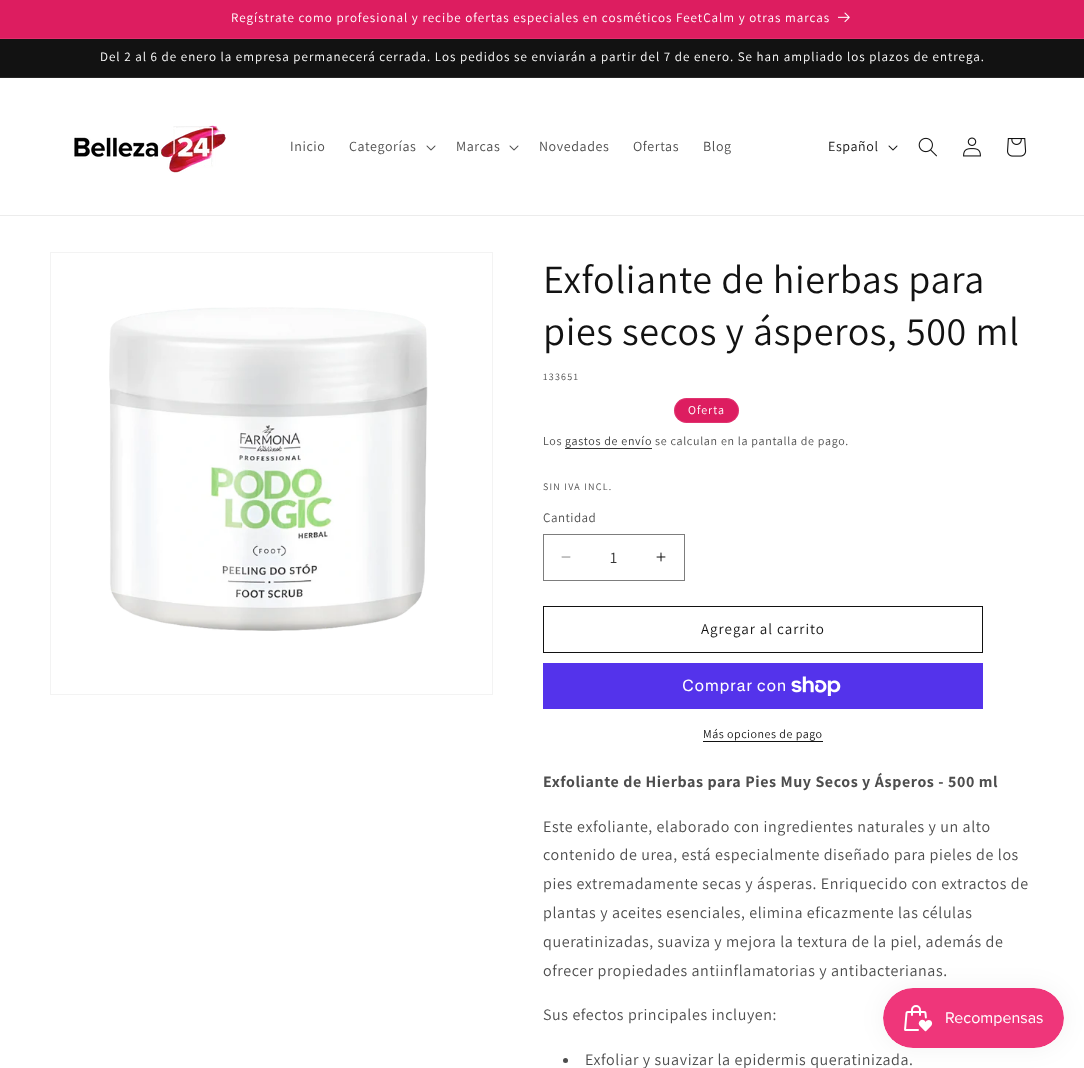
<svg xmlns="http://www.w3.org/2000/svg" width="1084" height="1068">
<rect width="100%" height="100%" fill="#fff"/>
<rect width="1084" height="38" fill="#dd1d60"/>
<rect y="38" width="1084" height="1" fill="#e02f6d"/>
<text x="231" y="22" style="font-family:Assistant;font-size:13px;letter-spacing:1px;fill:#fff">Regístrate como profesional y recibe ofertas especiales en cosméticos FeetCalm y otras marcas</text>
<image x="838" y="12" width="12" height="11" href="media/1.png"/>
<rect y="39" width="1084" height="38" fill="#121212"/>
<rect y="77" width="1084" height="1" fill="#252525"/>
<text x="100" y="61" style="font-family:Assistant;font-size:13px;letter-spacing:1px;fill:#fff">Del 2 al 6 de enero la empresa permanecerá cerrada. Los pedidos se enviarán a partir del 7 de enero. Se han ampliado los plazos de entrega.</text>
<rect y="215" width="1084" height="1" fill="#ececec"/>
<image x="74" y="125" width="152" height="48" href="media/2.png"/>
<text x="290" y="151" style="font-family:Assistant;font-size:14px;letter-spacing:0.6px;fill:#4d4d4d">Inicio</text>
<text x="349" y="151" style="font-family:Assistant;font-size:14px;letter-spacing:0.6px;fill:#4d4d4d">Categorías</text>
<image x="426" y="145" width="10" height="6" href="media/3.png"/>
<text x="456" y="151" style="font-family:Assistant;font-size:14px;letter-spacing:0.6px;fill:#4d4d4d">Marcas</text>
<image x="509" y="145" width="10" height="6" href="media/3.png"/>
<text x="539" y="151" style="font-family:Assistant;font-size:14px;letter-spacing:0.6px;fill:#4d4d4d">Novedades</text>
<text x="633" y="151" style="font-family:Assistant;font-size:14px;letter-spacing:0.6px;fill:#4d4d4d">Ofertas</text>
<text x="703" y="151" style="font-family:Assistant;font-size:14px;letter-spacing:0.6px;fill:#4d4d4d">Blog</text>
<text x="828" y="151" style="font-family:Assistant;font-size:14px;letter-spacing:0.6px;fill:#121212">Español</text>
<image x="888" y="145" width="10" height="6" href="media/4.png"/>
<image x="918" y="137" width="19" height="20" href="media/5.png"/>
<image x="963" y="137" width="18" height="20" href="media/6.png"/>
<image x="1007" y="138" width="20" height="19" href="media/7.png"/>
<rect x="50.5" y="252.5" width="442" height="442" fill="none" stroke="#f3f3f3"/>
<image x="109" y="307" width="319" height="324" href="media/8.png"/>
<text x="543" y="293" style="font-family:Assistant;font-size:40px;letter-spacing:0.6px;fill:#121212">Exfoliante de hierbas para</text>
<text x="543" y="345" style="font-family:Assistant;font-size:40px;letter-spacing:0.6px;fill:#121212">pies secos y ásperos, 500 ml</text>
<text x="543" y="380" style="font-family:Assistant;font-size:10px;letter-spacing:1.25px;fill:#4d4d4d">133651</text>
<rect x="674" y="398" width="65" height="25" rx="12.5" fill="#dd1d60"/>
<rect x="674.5" y="398.5" width="64" height="24" rx="12" fill="none" stroke="#ffffff1a"/>
<text x="688" y="414" style="font-family:Assistant;font-size:12px;letter-spacing:1px;fill:#fff">Oferta</text>
<text x="543" y="445" style="font-family:Assistant;font-size:12px;letter-spacing:0.7px;fill:#4d4d4d">Los</text>
<text x="565" y="445" style="font-family:Assistant;font-size:12px;letter-spacing:0.7px;fill:#363636">gastos de envío</text>
<rect x="565" y="448" width="87" height="1" fill="#363636"/>
<text x="655" y="445" style="font-family:Assistant;font-size:12px;letter-spacing:0.7px;fill:#4d4d4d">se calculan en la pantalla de pago.</text>
<text x="543" y="490" style="font-family:Assistant;font-size:10px;letter-spacing:1.25px;fill:#4d4d4d">SIN IVA INCL.</text>
<text x="543" y="522" style="font-family:Assistant;font-size:13px;letter-spacing:0.5px;fill:#4d4d4d">Cantidad</text>
<image x="561" y="556" width="10" height="2" href="media/9.png"/>
<image x="656" y="552" width="10" height="10" href="media/10.png"/>
<rect x="543.5" y="534.5" width="141" height="46" fill="none" stroke="#7d7d7d"/>
<text x="610" y="563" style="font-family:Assistant;font-size:16px;fill:#363636">1</text>
<rect x="543.5" y="606.5" width="439" height="46" fill="none" stroke="#121212"/>
<text x="701" y="634" style="font-family:Assistant;font-size:15px;letter-spacing:1px;fill:#121212">Agregar al carrito</text>
<rect x="543" y="663" width="440" height="46" fill="#5433eb"/>
<text x="682" y="691" style="font-family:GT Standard;font-size:16px;letter-spacing:0.6px;fill:#fff">Comprar con</text>
<image x="791" y="676" width="50" height="20" href="media/11.png"/>
<text x="703" y="738" style="font-family:Assistant;font-size:12px;letter-spacing:0.5px;fill:#121212">Más opciones de pago</text>
<rect x="703" y="741" width="120" height="1" fill="#121212"/>
<text x="543" y="787" style="font-family:Assistant;font-size:16px;font-weight:bold;letter-spacing:0.6px;fill:#4d4d4d">Exfoliante de Hierbas para Pies Muy Secos y Ásperos - 500 ml</text>
<text x="543" y="832" style="font-family:Assistant;font-size:16px;letter-spacing:0.6px;fill:#4d4d4d">Este exfoliante, elaborado con ingredientes naturales y un alto</text>
<text x="543" y="860" style="font-family:Assistant;font-size:16px;letter-spacing:0.6px;fill:#4d4d4d">contenido de urea, está especialmente diseñado para pieles de los</text>
<text x="543" y="889" style="font-family:Assistant;font-size:16px;letter-spacing:0.6px;fill:#4d4d4d">pies extremadamente secas y ásperas. Enriquecido con extractos de</text>
<text x="543" y="918" style="font-family:Assistant;font-size:16px;letter-spacing:0.6px;fill:#4d4d4d">plantas y aceites esenciales, elimina eficazmente las células</text>
<text x="543" y="947" style="font-family:Assistant;font-size:16px;letter-spacing:0.6px;fill:#4d4d4d">queratinizadas, suaviza y mejora la textura de la piel, además de</text>
<text x="543" y="976" style="font-family:Assistant;font-size:16px;letter-spacing:0.6px;fill:#4d4d4d">ofrecer propiedades antiinflamatorias y antibacterianas.</text>
<text x="543" y="1020" style="font-family:Assistant;font-size:16px;letter-spacing:0.6px;fill:#4d4d4d">Sus efectos principales incluyen:</text>
<circle cx="565.5" cy="1060.5" r="2.5" fill="#4d4d4d"/>
<text x="585" y="1065" style="font-family:Assistant;font-size:16px;letter-spacing:0.6px;fill:#4d4d4d">Exfoliar y suavizar la epidermis queratinizada.</text>
<rect x="883" y="988" width="181" height="60" rx="30" fill="#0000000d" filter="blur(12.5px)"/>
<image x="883" y="988" width="181" height="60" href="media/12.png"/>
</svg>
